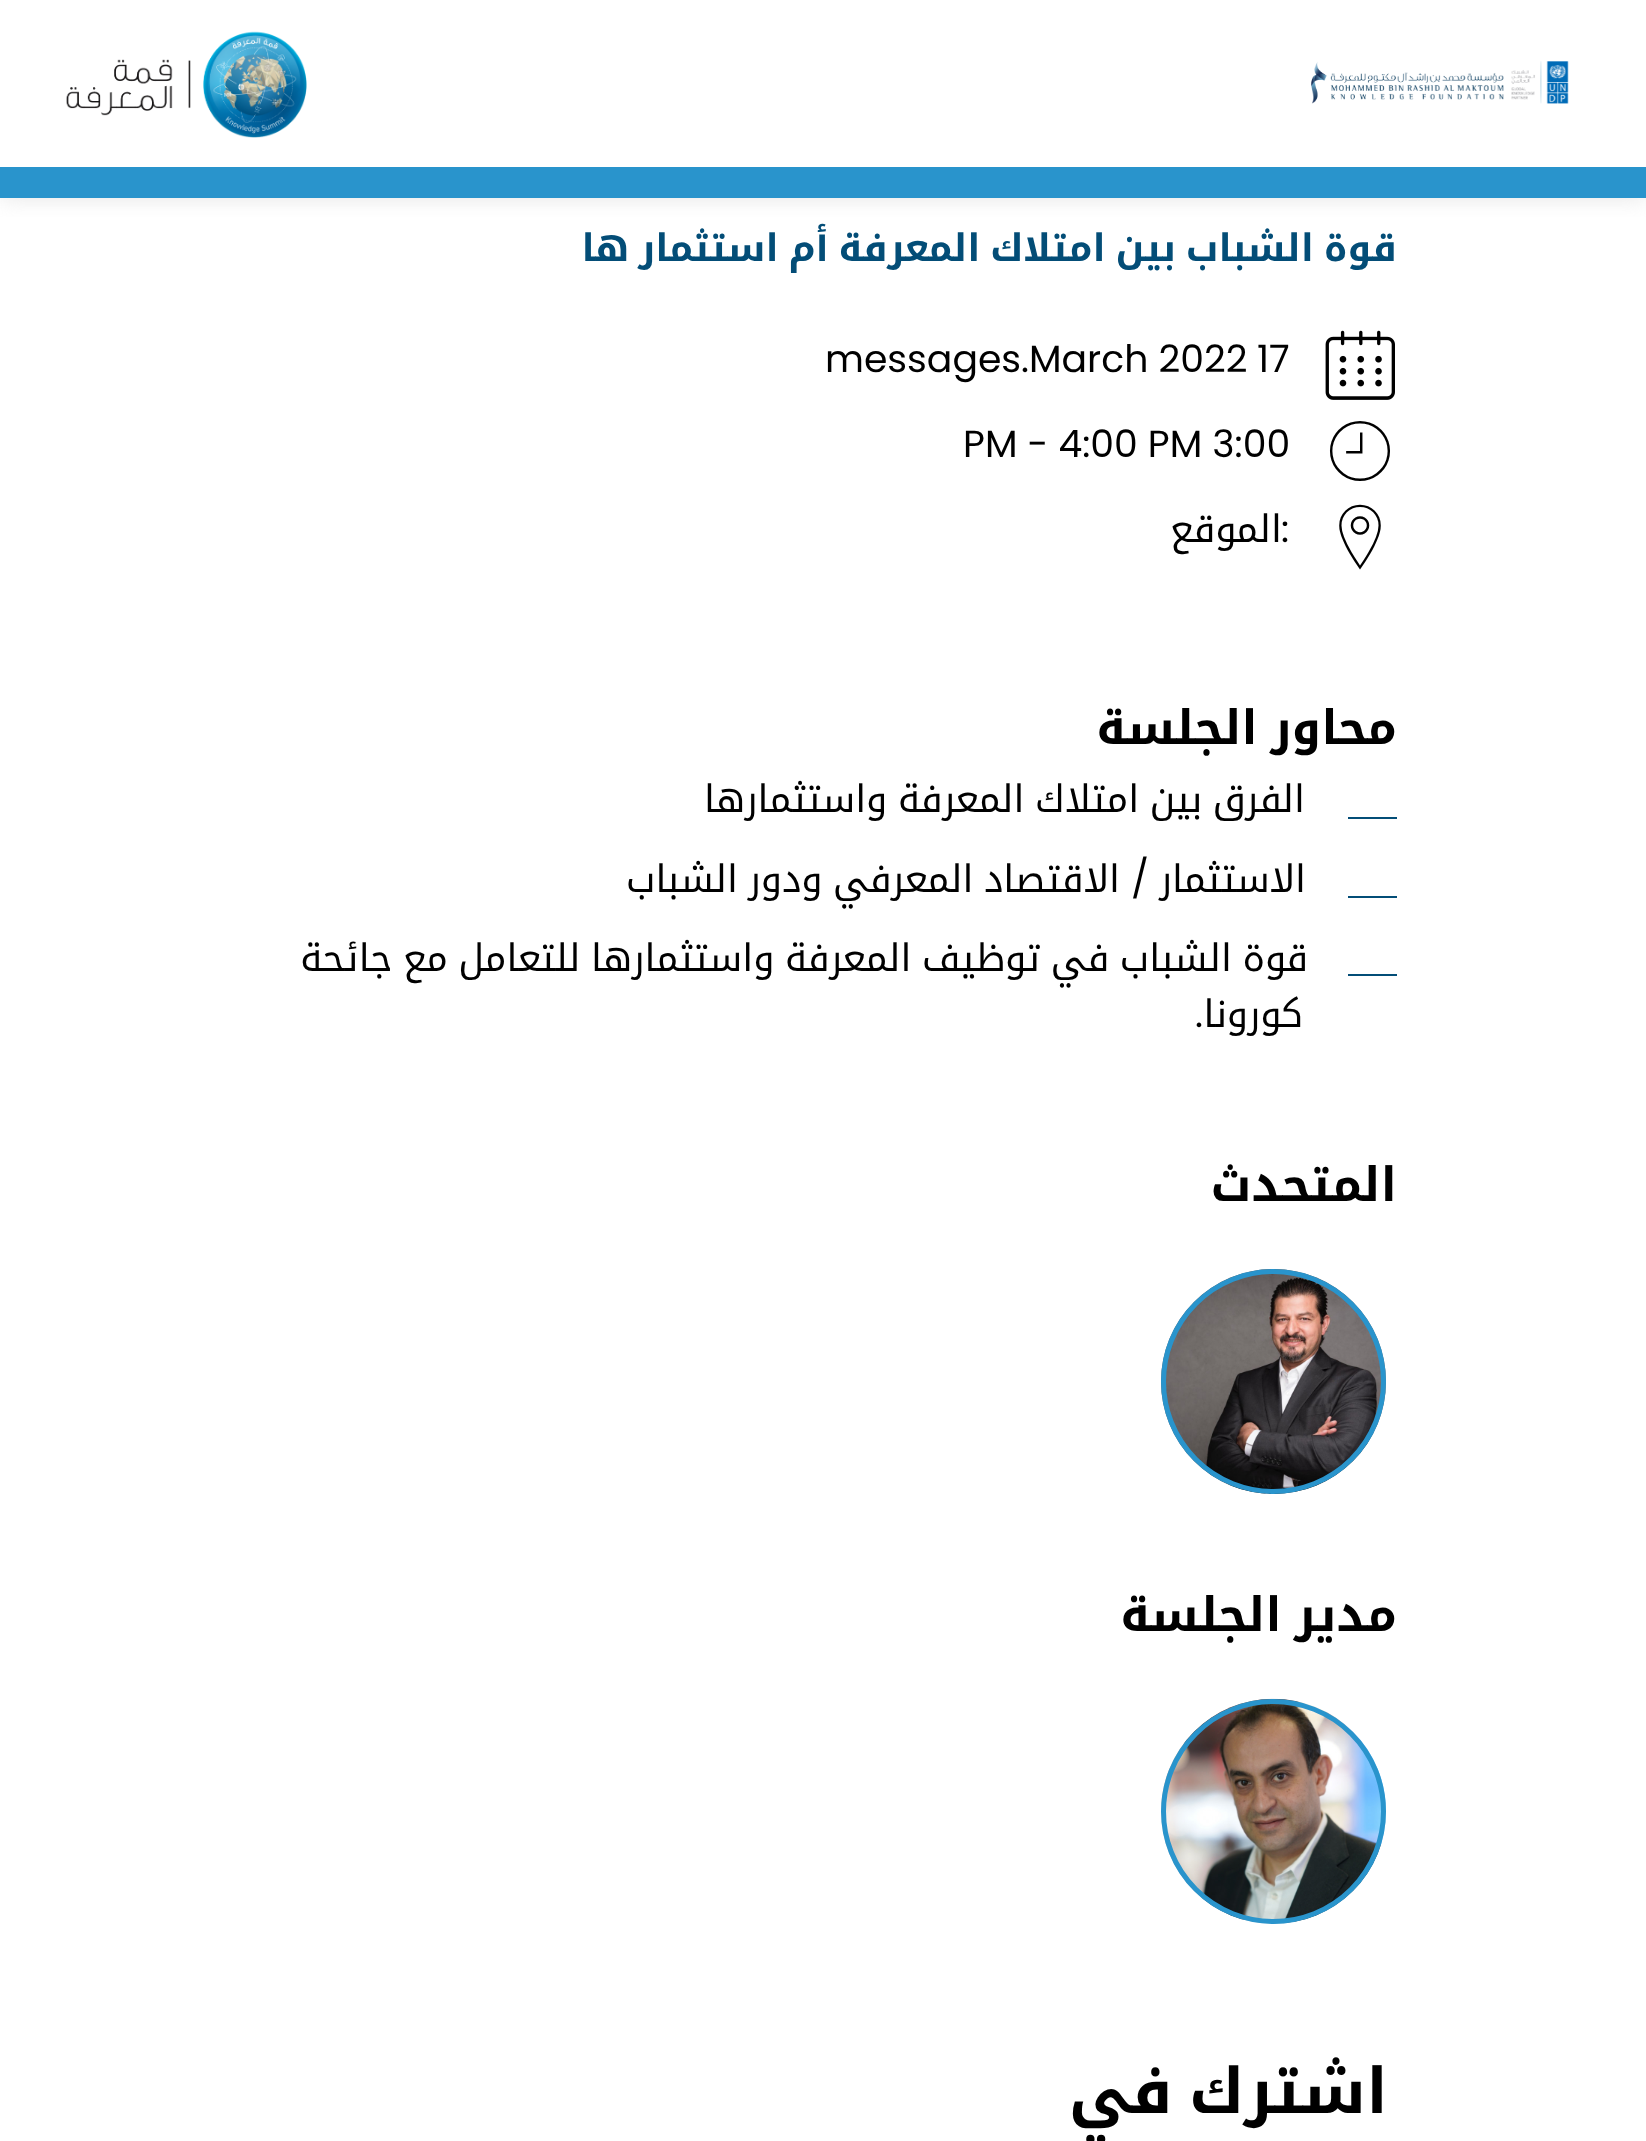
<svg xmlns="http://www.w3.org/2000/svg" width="1646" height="2141">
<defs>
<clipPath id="clip1"><rect x="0" y="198" width="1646" height="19"/></clipPath>
</defs>
<rect width="100%" height="100%" fill="#fff"/>
<g clip-path="url(#clip1)">
<rect width="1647" height="198" fill="#cccccc80" filter="blur(11px)"/>
</g>
<image x="1311" y="61" width="258" height="43" href="media/1.png"/>
<image x="66" y="31" width="241" height="107" href="media/2.png"/>
<rect y="167" width="1646" height="31" fill="#2994cc"/>
<text x="1397" y="261" word-spacing="-3" style="font-family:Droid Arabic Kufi;font-size:37.8px;font-weight:bold;direction:rtl;fill:#034d77">قوة الشباب بين امتلاك المعرفة أم استثمار ها</text>
<image x="1325" y="330" width="70" height="70" href="media/3.png"/>
<text x="1257" y="372" style="font-family:Poppins;font-size:37.8px;fill:#000">17</text>
<text x="825" y="372" style="font-family:Poppins;font-size:37.8px;fill:#000">messages.March 2022</text>
<text x="1323" y="488" style="font-family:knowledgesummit;font-size:74px;fill:#000">~</text>
<text x="963" y="457" style="font-family:Poppins;font-size:37.8px;fill:#000">PM - 4:00 PM 3:00</text>
<text x="1323" y="574" style="font-family:knowledgesummit;font-size:74px;fill:#000">\</text>
<text x="1281" y="542" style="font-family:Poppins;font-size:37.8px;fill:#000">:</text>
<text x="1282" y="542" style="font-family:Droid Arabic Kufi;font-size:37.8px;direction:rtl;fill:#000">الموقع</text>
<text x="1397" y="744" word-spacing="-3" style="font-family:Droid Arabic Kufi;font-size:47.25px;font-weight:bold;direction:rtl;fill:#000">محاور الجلسة</text>
<rect x="1348" y="817" width="49" height="2" fill="#034d77"/>
<text x="1305" y="812" word-spacing="-2.25" style="font-family:Droid Arabic Kufi;font-size:37.8px;direction:rtl;fill:#000">الفرق بين امتلاك المعرفة واستثمارها</text>
<rect x="1348" y="896" width="49" height="2" fill="#034d77"/>
<text x="1306" y="892" style="font-family:Droid Arabic Kufi;font-size:37.8px;direction:rtl;fill:#000">الاستثمار</text>
<text x="1149" y="892" style="font-family:Poppins;font-size:37.8px;direction:rtl;fill:#000">/</text>
<text x="1120" y="892" word-spacing="-2.25" style="font-family:Droid Arabic Kufi;font-size:37.8px;direction:rtl;fill:#000">الاقتصاد المعرفي ودور الشباب</text>
<rect x="1348" y="974" width="49" height="2" fill="#034d77"/>
<text x="1308" y="971" word-spacing="-2.25" style="font-family:Droid Arabic Kufi;font-size:37.8px;direction:rtl;fill:#000">قوة الشباب في توظيف المعرفة واستثمارها للتعامل مع جائحة</text>
<text x="1303" y="1027" style="font-family:Droid Arabic Kufi;font-size:37.8px;direction:rtl;fill:#000">كورونا</text>
<text x="1203" y="1027" style="font-family:Poppins;font-size:37.8px;direction:rtl;fill:#000">.</text>
<text x="1397" y="1201" style="font-family:Droid Arabic Kufi;font-size:47.25px;font-weight:bold;direction:rtl;fill:#000">المتحدث</text>
<image x="1161" y="1269" width="225" height="225" href="media/4.png"/>
<circle cx="1273.5" cy="1381.5" r="110" fill="none" stroke="#2994cc" stroke-width="5"/>
<text x="1397" y="1631" word-spacing="-3" style="font-family:Droid Arabic Kufi;font-size:47.25px;font-weight:bold;direction:rtl;fill:#000">مدير الجلسة</text>
<image x="1161" y="1698" width="225" height="226" href="media/5.png"/>
<circle cx="1273.5" cy="1811.5" r="110" fill="none" stroke="#2994cc" stroke-width="5"/>
<text x="1388" y="2113" word-spacing="-5" style="font-family:Droid Arabic Kufi;font-size:63px;font-weight:bold;direction:rtl;fill:#000">اشترك في</text>
</svg>
